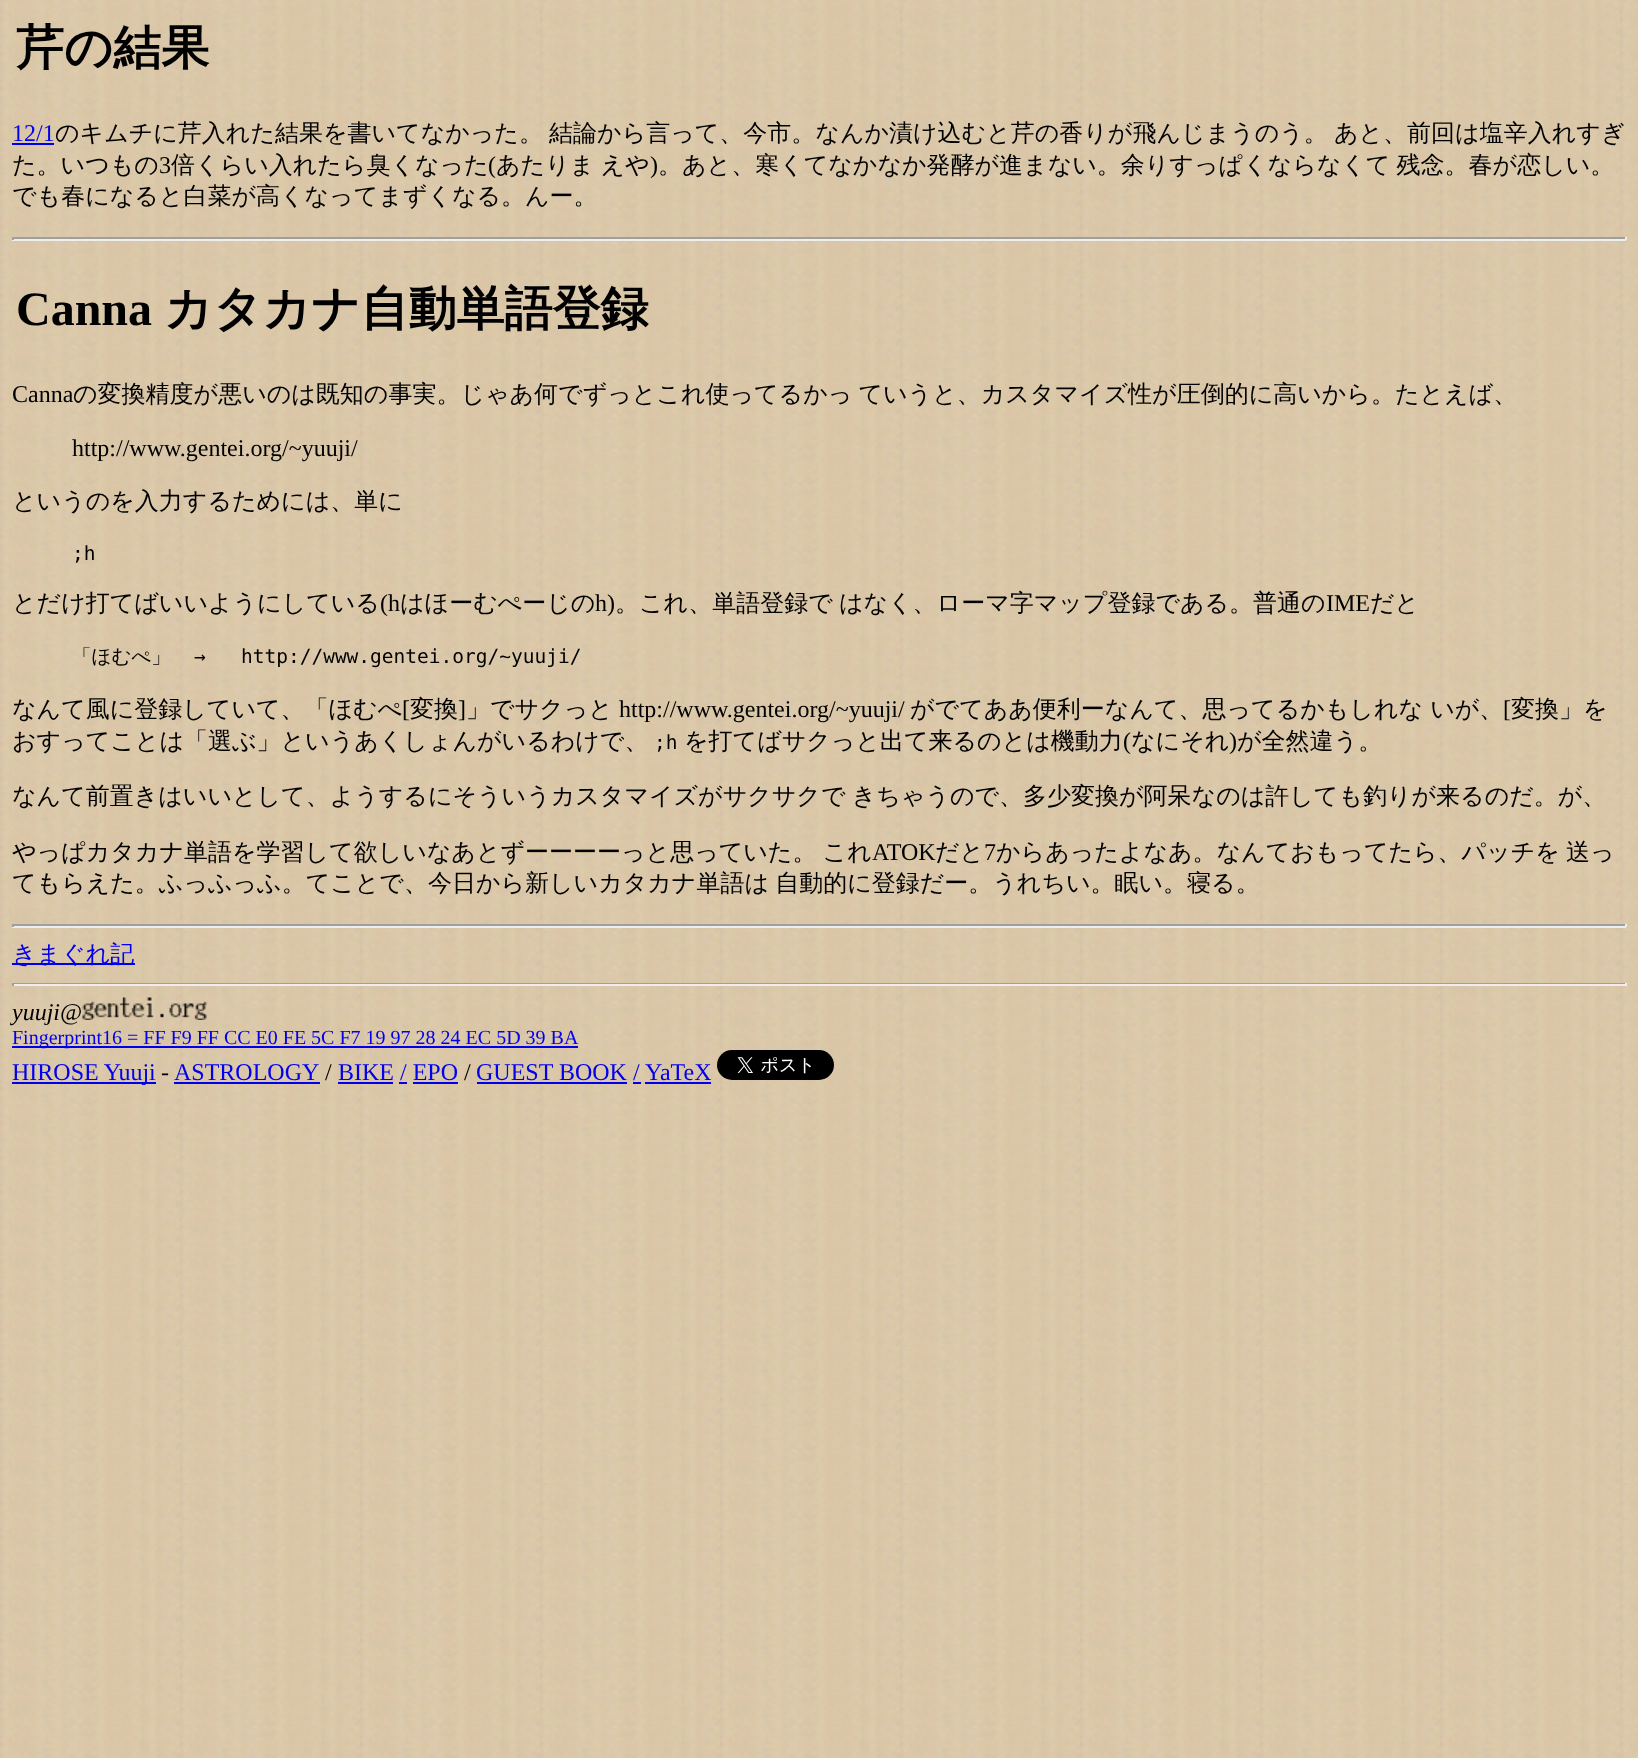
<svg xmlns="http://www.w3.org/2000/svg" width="1638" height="1758">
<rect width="100%" height="100%" fill="#fff"/>
<image x="0" y="0" width="1638" height="1758" href="media/1.png"/>
<text x="16" y="64" style="font-family:WenQuanYi Zen Hei;font-size:48px;font-weight:bold;fill:#000">芹の結果</text>
<text x="12" y="141" style="font-family:Liberation Serif;font-size:24px;fill:#00e">12/1</text>
<rect x="12" y="143" width="42" height="2" fill="#00e"/>
<text x="55" y="141" word-spacing="-1" style="font-family:WenQuanYi Zen Hei;font-size:24px;font-weight:500;fill:#000">のキムチに芹入れた結果を書いてなかった。 結論から言って、今市。なんか漬け込むと芹の香りが飛んじまうのう。 あと、前回は塩辛入れすぎ</text>
<text x="12" y="173" style="font-family:WenQuanYi Zen Hei;font-size:24px;font-weight:500;fill:#000">た。いつもの</text>
<text x="159" y="173" style="font-family:Liberation Serif;font-size:24px;fill:#000">3</text>
<text x="171" y="173" style="font-family:WenQuanYi Zen Hei;font-size:24px;font-weight:500;fill:#000">倍くらい入れたら臭くなった</text>
<text x="488" y="173" style="font-family:Liberation Serif;font-size:24px;fill:#000">(</text>
<text x="496" y="173" word-spacing="-1" style="font-family:WenQuanYi Zen Hei;font-size:24px;font-weight:500;fill:#000">あたりま えや</text>
<text x="650" y="173" style="font-family:Liberation Serif;font-size:24px;fill:#000">)</text>
<text x="658" y="173" word-spacing="-1" style="font-family:WenQuanYi Zen Hei;font-size:24px;font-weight:500;fill:#000">。あと、寒くてなかなか発酵が進まない。余りすっぱくならなくて 残念。春が恋しい。</text>
<text x="12" y="204" style="font-family:WenQuanYi Zen Hei;font-size:24px;font-weight:500;fill:#000">でも春になると白菜が高くなってまずくなる。んー。</text>
<rect x="12" y="237" width="1614" height="2" fill="#9f9f9f"/>
<rect x="1625" y="237" width="2" height="3" fill="#eee"/>
<rect x="12" y="239" width="1614" height="2" fill="#eee"/>
<rect x="12" y="237" width="2" height="3" fill="#9f9f9f"/>
<text x="16" y="325" style="font-family:Liberation Serif;font-size:48px;font-weight:bold;fill:#000">Canna</text>
<text x="164" y="325" style="font-family:WenQuanYi Zen Hei;font-size:48px;font-weight:bold;fill:#000">カタカナ自動単語登録</text>
<text x="12" y="402" style="font-family:Liberation Serif;font-size:24px;fill:#000">Canna</text>
<text x="73" y="402" word-spacing="-1" style="font-family:WenQuanYi Zen Hei;font-size:24px;font-weight:500;fill:#000">の変換精度が悪いのは既知の事実。じゃあ何でずっとこれ使ってるかっ ていうと、カスタマイズ性が圧倒的に高いから。たとえば、</text>
<text x="72" y="456" style="font-family:Liberation Serif;font-size:24px;fill:#000">http://www.gentei.org/~yuuji/</text>
<text x="12" y="509" style="font-family:WenQuanYi Zen Hei;font-size:24px;font-weight:500;fill:#000">というのを入力するためには、単に</text>
<text x="72" y="560" style="font-family:DejaVu Sans Mono;font-size:19.5px;fill:#000">;h</text>
<text x="12" y="611" style="font-family:WenQuanYi Zen Hei;font-size:24px;font-weight:500;fill:#000">とだけ打てばいいようにしている</text>
<text x="380" y="611" style="font-family:Liberation Serif;font-size:24px;fill:#000">(h</text>
<text x="400" y="611" style="font-family:WenQuanYi Zen Hei;font-size:24px;font-weight:500;fill:#000">はほーむぺーじの</text>
<text x="595" y="611" style="font-family:Liberation Serif;font-size:24px;fill:#000">h)</text>
<text x="615" y="611" word-spacing="-1" style="font-family:WenQuanYi Zen Hei;font-size:24px;font-weight:500;fill:#000">。これ、単語登録で はなく、ローマ字マップ登録である。普通の</text>
<text x="1326" y="611" style="font-family:Liberation Serif;font-size:24px;fill:#000">IME</text>
<text x="1370" y="611" style="font-family:WenQuanYi Zen Hei;font-size:24px;font-weight:500;fill:#000">だと</text>
<text x="72" y="663" style="font-family:WenQuanYi Zen Hei;font-size:19.5px;font-weight:500;fill:#000">「ほむぺ」</text>
<text x="194" y="663" style="font-family:DejaVu Sans Mono;font-size:19.5px;fill:#000" xml:space="preserve">→   http://www.gentei.org/~yuuji/</text>
<text x="12" y="717" style="font-family:WenQuanYi Zen Hei;font-size:24px;font-weight:500;fill:#000">なんて風に登録していて、「ほむぺ</text>
<text x="402" y="717" style="font-family:Liberation Serif;font-size:24px;fill:#000">[</text>
<text x="410" y="717" style="font-family:WenQuanYi Zen Hei;font-size:24px;font-weight:500;fill:#000">変換</text>
<text x="458" y="717" style="font-family:Liberation Serif;font-size:24px;fill:#000">]</text>
<text x="466" y="717" style="font-family:WenQuanYi Zen Hei;font-size:24px;font-weight:500;fill:#000">」でサクっと</text>
<text x="619" y="717" style="font-family:Liberation Serif;font-size:24px;fill:#000">http://www.gentei.org/~yuuji/</text>
<text x="910" y="717" style="font-family:WenQuanYi Zen Hei;font-size:24px;font-weight:500;fill:#000">がでてああ便利ーなんて、思ってるかもしれな いが、</text>
<text x="1503" y="717" style="font-family:Liberation Serif;font-size:24px;fill:#000">[</text>
<text x="1511" y="717" style="font-family:WenQuanYi Zen Hei;font-size:24px;font-weight:500;fill:#000">変換」を</text>
<text x="12" y="749" style="font-family:WenQuanYi Zen Hei;font-size:24px;font-weight:500;fill:#000">おすってことは「選ぶ」というあくしょんがいるわけで、</text>
<text x="654" y="749" style="font-family:DejaVu Sans Mono;font-size:19.5px;fill:#000">;h</text>
<text x="684" y="749" style="font-family:WenQuanYi Zen Hei;font-size:24px;font-weight:500;fill:#000">を打てばサクっと出て来るのとは機動力</text>
<text x="1123" y="749" style="font-family:Liberation Serif;font-size:24px;fill:#000">(</text>
<text x="1131" y="749" style="font-family:WenQuanYi Zen Hei;font-size:24px;font-weight:500;fill:#000">なにそれ</text>
<text x="1229" y="749" style="font-family:Liberation Serif;font-size:24px;fill:#000">)</text>
<text x="1237" y="749" style="font-family:WenQuanYi Zen Hei;font-size:24px;font-weight:500;fill:#000">が全然違う。</text>
<text x="12" y="804" word-spacing="-1" style="font-family:WenQuanYi Zen Hei;font-size:24px;font-weight:500;fill:#000">なんて前置きはいいとして、ようするにそういうカスタマイズがサクサクで きちゃうので、多少変換が阿呆なのは許しても釣りが来るのだ。が、</text>
<text x="12" y="860" word-spacing="-1" style="font-family:WenQuanYi Zen Hei;font-size:24px;font-weight:500;fill:#000">やっぱカタカナ単語を学習して欲しいなあとずーーーーっと思っていた。 これ</text>
<text x="872" y="860" style="font-family:Liberation Serif;font-size:24px;fill:#000">ATOK</text>
<text x="935" y="860" style="font-family:WenQuanYi Zen Hei;font-size:24px;font-weight:500;fill:#000">だと</text>
<text x="984" y="860" style="font-family:Liberation Serif;font-size:24px;fill:#000">7</text>
<text x="996" y="860" word-spacing="-1" style="font-family:WenQuanYi Zen Hei;font-size:24px;font-weight:500;fill:#000">からあったよなあ。なんておもってたら、パッチを 送っ</text>
<text x="12" y="891" word-spacing="-1" style="font-family:WenQuanYi Zen Hei;font-size:24px;font-weight:500;fill:#000">てもらえた。ふっふっふ。てことで、今日から新しいカタカナ単語は 自動的に登録だー。うれちい。眠い。寝る。</text>
<rect x="12" y="924" width="1614" height="2" fill="#9f9f9f"/>
<rect x="1625" y="924" width="2" height="3" fill="#eee"/>
<rect x="12" y="926" width="1614" height="2" fill="#eee"/>
<rect x="12" y="924" width="2" height="3" fill="#9f9f9f"/>
<rect x="12" y="963" width="123" height="2" fill="#00e"/>
<text x="12" y="962" style="font-family:WenQuanYi Zen Hei;font-size:24px;font-weight:500;fill:#00e">きまぐれ記</text>
<rect x="12" y="983" width="1614" height="1" fill="#9f9f9f"/>
<rect x="1625" y="983" width="2" height="3" fill="#eee"/>
<rect x="12" y="984" width="1614" height="2" fill="#eee"/>
<rect x="12" y="983" width="2" height="3" fill="#9f9f9f"/>
<text x="12" y="1020" style="font-family:Liberation Serif;font-size:24px;font-style:italic;fill:#000">yuuji@</text>
<image x="82" y="997" width="125" height="23" href="media/2.png"/>
<rect x="12" y="1046" width="566" height="2" fill="#00e"/>
<text x="12" y="1044" style="font-family:Liberation Serif;font-size:20px;fill:#00e">Fingerprint16 = FF F9 FF CC E0 FE 5C F7 19 97 28 24 EC 5D 39 BA</text>
<rect x="12" y="1082" width="144" height="2" fill="#00e"/>
<text x="12" y="1080" style="font-family:Liberation Serif;font-size:24px;fill:#00e">HIROSE Yuuji</text>
<text x="161" y="1080" style="font-family:Liberation Serif;font-size:24px;fill:#000">-</text>
<text x="174" y="1080" style="font-family:Liberation Serif;font-size:24px;fill:#00e">ASTROLOGY</text>
<rect x="174" y="1082" width="146" height="2" fill="#00e"/>
<text x="325" y="1080" style="font-family:Liberation Serif;font-size:24px;fill:#000">/</text>
<text x="338" y="1080" style="font-family:Liberation Serif;font-size:24px;fill:#00e">BIKE / EPO</text>
<rect x="338" y="1082" width="55" height="2" fill="#00e"/>
<text x="464" y="1080" style="font-family:Liberation Serif;font-size:24px;fill:#000">/</text>
<text x="476" y="1080" style="font-family:Liberation Serif;font-size:24px;fill:#00e">GUEST BOOK /</text>
<rect x="477" y="1082" width="150" height="2" fill="#00e"/>
<text x="645" y="1080" style="font-family:Liberation Serif;font-size:24px;fill:#00e">YaTeX</text>
<rect x="645" y="1082" width="66" height="2" fill="#00e"/>
<image x="717" y="1050" width="117" height="30" href="media/3.png"/>
<rect x="399" y="1082" width="8" height="2" fill="#00e"/>
<rect x="413" y="1082" width="45" height="2" fill="#00e"/>
<rect x="633" y="1082" width="8" height="2" fill="#00e"/>
</svg>
